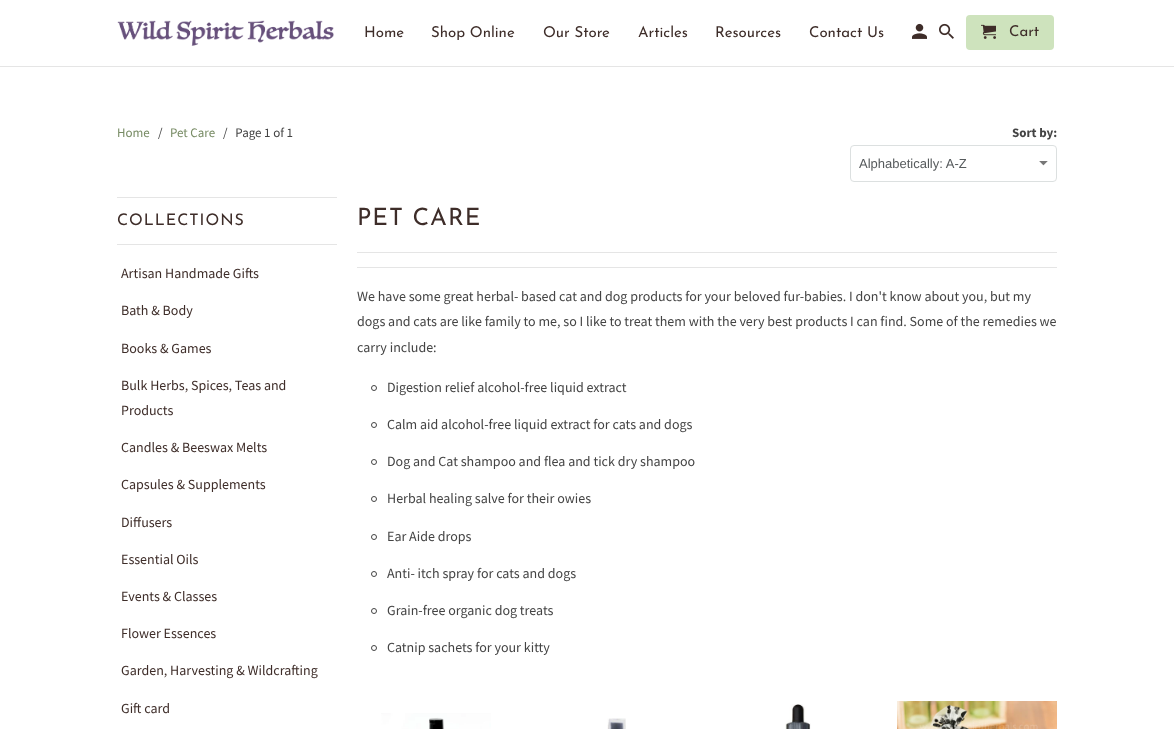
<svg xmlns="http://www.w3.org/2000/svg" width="1174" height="729">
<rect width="100%" height="100%" fill="#fff"/>
<rect y="66" width="1174" height="1" fill="#e5e5e5"/>
<image x="117" y="20" width="217" height="26" href="media/1.png"/>
<text x="364" y="37" style="font-family:Josefin Sans;font-size:15px;fill:#3e2d29">Home</text>
<text x="431" y="37" style="font-family:Josefin Sans;font-size:15px;fill:#3e2d29">Shop Online</text>
<text x="543" y="37" style="font-family:Josefin Sans;font-size:15px;fill:#3e2d29">Our Store</text>
<text x="638" y="37" style="font-family:Josefin Sans;font-size:15px;fill:#3e2d29">Articles</text>
<text x="715" y="37" style="font-family:Josefin Sans;font-size:15px;fill:#3e2d29">Resources</text>
<text x="809" y="37" style="font-family:Josefin Sans;font-size:15px;fill:#3e2d29">Contact Us</text>
<image x="912" y="23" width="15" height="16" href="media/2.png"/>
<image x="939" y="23" width="15" height="16" href="media/3.png"/>
<rect x="966" y="15" width="88" height="35" rx="4" fill="#cee3bd"/>
<image x="981" y="24" width="15" height="15" href="media/4.png"/>
<text x="1009" y="36" style="font-family:Josefin Sans;font-size:15px;fill:#3e2d29">Cart</text>
<text x="117" y="137" style="font-family:Source Sans Pro;font-size:13px;fill:#778b64">Home</text>
<text x="158" y="137" style="font-family:Source Sans Pro;font-size:13px;fill:#444">/</text>
<text x="170" y="137" style="font-family:Source Sans Pro;font-size:13px;fill:#778b64">Pet Care</text>
<text x="223" y="137" style="font-family:Source Sans Pro;font-size:13px;fill:#444" xml:space="preserve">/   Page 1 of 1</text>
<text x="1012" y="137" style="font-family:Source Sans Pro;font-size:13px;font-weight:bold;fill:#444">Sort by:</text>
<image x="1039" y="161" width="9" height="5" href="media/5.png"/>
<rect x="850.5" y="145.5" width="206" height="36" rx="3.5" fill="none" stroke="#dce0e0"/>
<text x="859" y="168" style="font-family:Liberation Sans;font-size:13px;fill:#565a5c">Alphabetically: A-Z</text>
<rect x="117" y="197" width="220" height="1" fill="#e5e5e5"/>
<rect x="117" y="244" width="220" height="1" fill="#e5e5e5"/>
<text x="117" y="225" style="font-family:Josefin Sans;font-size:16px;letter-spacing:1px;fill:#3e2d29">COLLECTIONS</text>
<text x="121" y="278" style="font-family:Source Sans Pro;font-size:14px;fill:#3e2d29">Artisan Handmade Gifts</text>
<text x="121" y="315" style="font-family:Source Sans Pro;font-size:14px;fill:#3e2d29">Bath &amp; Body</text>
<text x="121" y="353" style="font-family:Source Sans Pro;font-size:14px;fill:#3e2d29">Books &amp; Games</text>
<text x="121" y="390" style="font-family:Source Sans Pro;font-size:14px;fill:#3e2d29">Bulk Herbs, Spices, Teas and</text>
<text x="121" y="415" style="font-family:Source Sans Pro;font-size:14px;fill:#3e2d29">Products</text>
<text x="121" y="452" style="font-family:Source Sans Pro;font-size:14px;fill:#3e2d29">Candles &amp; Beeswax Melts</text>
<text x="121" y="489" style="font-family:Source Sans Pro;font-size:14px;fill:#3e2d29">Capsules &amp; Supplements</text>
<text x="121" y="527" style="font-family:Source Sans Pro;font-size:14px;fill:#3e2d29">Diffusers</text>
<text x="121" y="564" style="font-family:Source Sans Pro;font-size:14px;fill:#3e2d29">Essential Oils</text>
<text x="121" y="601" style="font-family:Source Sans Pro;font-size:14px;fill:#3e2d29">Events &amp; Classes</text>
<text x="121" y="638" style="font-family:Source Sans Pro;font-size:14px;fill:#3e2d29">Flower Essences</text>
<text x="121" y="675" style="font-family:Source Sans Pro;font-size:14px;fill:#3e2d29">Garden, Harvesting &amp; Wildcrafting</text>
<text x="121" y="713" style="font-family:Source Sans Pro;font-size:14px;fill:#3e2d29">Gift card</text>
<text x="357" y="225" style="font-family:Josefin Sans;font-size:24px;letter-spacing:1px;fill:#3e2d29">PET CARE</text>
<rect x="357" y="252" width="700" height="1" fill="#e5e5e5"/>
<rect x="357" y="267" width="700" height="1" fill="#e5e5e5"/>
<text x="357" y="301" style="font-family:Source Sans Pro;font-size:14px;fill:#444">We have some great herbal- based cat and dog products for your beloved fur-babies. I don't know about you, but my</text>
<text x="357" y="326" style="font-family:Source Sans Pro;font-size:14px;fill:#444">dogs and cats are like family to me, so I like to treat them with the very best products I can find. Some of the remedies we</text>
<text x="357" y="352" style="font-family:Source Sans Pro;font-size:14px;fill:#444">carry include:</text>
<circle cx="374" cy="388" r="2.5" fill="none" stroke="#444"/>
<text x="387" y="392" style="font-family:Source Sans Pro;font-size:14px;fill:#444">Digestion relief alcohol-free liquid extract</text>
<circle cx="374" cy="425" r="2.5" fill="none" stroke="#444"/>
<text x="387" y="429" style="font-family:Source Sans Pro;font-size:14px;fill:#444">Calm aid alcohol-free liquid extract for cats and dogs</text>
<circle cx="374" cy="462" r="2.5" fill="none" stroke="#444"/>
<text x="387" y="466" style="font-family:Source Sans Pro;font-size:14px;fill:#444">Dog and Cat shampoo and flea and tick dry shampoo</text>
<circle cx="374" cy="499" r="2.5" fill="none" stroke="#444"/>
<text x="387" y="503" style="font-family:Source Sans Pro;font-size:14px;fill:#444">Herbal healing salve for their owies</text>
<circle cx="374" cy="537" r="2.5" fill="none" stroke="#444"/>
<text x="387" y="541" style="font-family:Source Sans Pro;font-size:14px;fill:#444">Ear Aide drops</text>
<circle cx="374" cy="574" r="2.5" fill="none" stroke="#444"/>
<text x="387" y="578" style="font-family:Source Sans Pro;font-size:14px;fill:#444">Anti- itch spray for cats and dogs</text>
<circle cx="374" cy="611" r="2.5" fill="none" stroke="#444"/>
<text x="387" y="615" style="font-family:Source Sans Pro;font-size:14px;fill:#444">Grain-free organic dog treats</text>
<circle cx="374" cy="648" r="2.5" fill="none" stroke="#444"/>
<text x="387" y="652" style="font-family:Source Sans Pro;font-size:14px;fill:#444">Catnip sachets for your kitty</text>
<image x="381" y="713" width="110" height="16" href="media/6.png"/>
<image x="607" y="718" width="19" height="11" href="media/7.png"/>
<image x="785" y="704" width="26" height="25" href="media/8.png"/>
<image x="897" y="701" width="160" height="28" href="media/9.png"/>
</svg>
